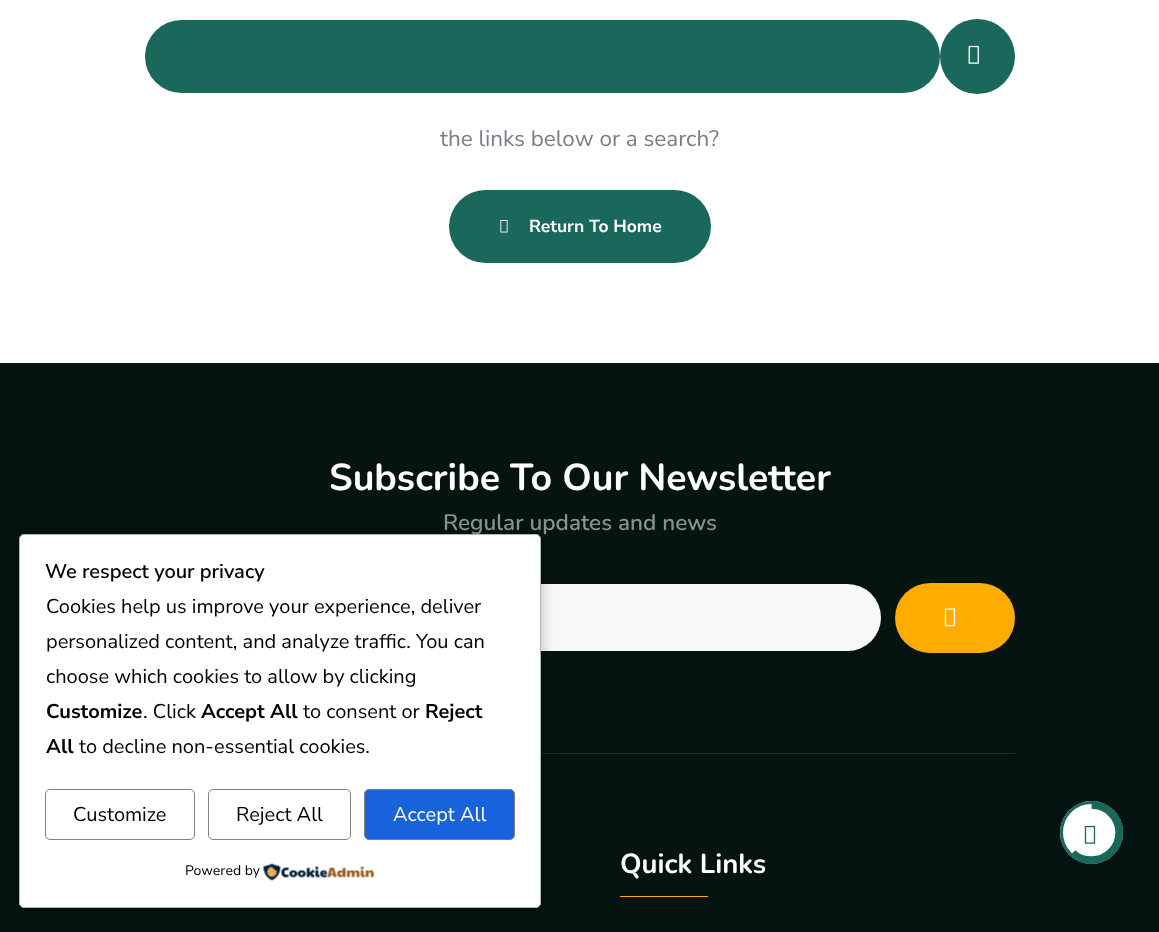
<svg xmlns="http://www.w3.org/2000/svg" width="1159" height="932">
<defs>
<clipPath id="clip1"><rect x="1060" y="801" width="63" height="63" rx="31.5"/></clipPath>
</defs>
<rect width="100%" height="100%" fill="#fff"/>
<rect x="145" y="20" width="795" height="73" rx="36.5" fill="#1a685b"/>
<circle cx="977.5" cy="56.5" r="37.5" fill="#1a685b"/>
<image x="968" y="45" width="11" height="19" href="media/1.png"/>
<text x="440" y="146" style="font-family:Nunito Sans;font-size:22.5px;fill:#797e88">the links below or a search?</text>
<rect x="449" y="190" width="262" height="73" rx="36.5" fill="#1a685b"/>
<image x="500" y="220" width="8" height="13" href="media/2.png"/>
<text x="529" y="232" style="font-family:Nunito Sans;font-size:17.5px;font-weight:bold;fill:#fff">Return To Home</text>
<rect y="363" width="1159" height="569" fill="#051311"/>
<rect x="541" y="753" width="474" height="1" fill="#1e2b29"/>
<rect x="146" y="584" width="735" height="67" rx="33.5" fill="#f8f8f8"/>
<rect x="20" y="538" width="523" height="373" rx="5" fill="#00000033" filter="blur(6px)"/>
<text x="443" y="530" style="font-family:Nunito;font-size:22.5px;font-weight:600;fill:#829592">Regular updates and news</text>
<rect x="19.5" y="534.5" width="521" height="373" rx="4.5" fill="#fff" stroke="#abb8c3"/>
<text x="45" y="578" style="font-family:Nunito Sans;font-size:20px;font-weight:600;fill:#000">We respect your privacy</text>
<text x="46" y="613" style="font-family:Nunito Sans;font-size:20px;fill:#000">Cookies help us improve your experience, deliver</text>
<text x="46" y="648" style="font-family:Nunito Sans;font-size:20px;fill:#000">personalized content, and analyze traffic. You can</text>
<text x="46" y="683" style="font-family:Nunito Sans;font-size:20px;fill:#000">choose which cookies to allow by clicking</text>
<text x="46" y="718" style="font-family:Nunito Sans;font-size:20px;font-weight:bold;fill:#000">Customize</text>
<text x="143" y="718" style="font-family:Nunito Sans;font-size:20px;fill:#000">. Click</text>
<text x="201" y="718" style="font-family:Nunito Sans;font-size:20px;font-weight:bold;fill:#000">Accept All</text>
<text x="303" y="718" style="font-family:Nunito Sans;font-size:20px;fill:#000">to consent or</text>
<text x="425" y="718" style="font-family:Nunito Sans;font-size:20px;font-weight:bold;fill:#000">Reject</text>
<text x="46" y="753" style="font-family:Nunito Sans;font-size:20px;font-weight:bold;fill:#000">All</text>
<text x="79" y="753" style="font-family:Nunito Sans;font-size:20px;fill:#000">to decline non-essential cookies.</text>
<rect x="45.5" y="789.5" width="149" height="50" rx="4.5" fill="none" stroke="#808080"/>
<text x="73" y="821" style="font-family:Nunito Sans;font-size:20px;fill:#000">Customize</text>
<rect x="208.5" y="789.5" width="142" height="50" rx="4.5" fill="none" stroke="#808080"/>
<text x="236" y="821" style="font-family:Nunito Sans;font-size:20px;fill:#000">Reject All</text>
<rect x="364.5" y="789.5" width="150" height="50" rx="4.5" fill="#1863dc" stroke="#808080"/>
<text x="393" y="821" style="font-family:Nunito Sans;font-size:20px;fill:#fff">Accept All</text>
<text x="185" y="875" style="font-family:'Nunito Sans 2';font-size:13.75px;fill:#000">Powered by</text>
<image x="263" y="863" width="112" height="18" href="media/3.png"/>
<text x="329" y="490" style="font-family:Nunito;font-size:37.5px;font-weight:bold;fill:#fff">Subscribe To Our Newsletter</text>
<rect x="895" y="583" width="120" height="70" rx="35" fill="#ffac00"/>
<image x="944" y="608" width="12" height="19" href="media/4.png"/>
<text x="620" y="873" style="font-family:Nunito;font-size:27.5px;font-weight:bold;fill:#fff">Quick Links</text>
<rect x="620" y="896" width="88" height="1" fill="#ffac00"/>
<circle cx="1091.5" cy="832.5" r="31.5" fill="#fff"/>
<g clip-path="url(#clip1)">
<path d="M1091.5 802.5c16.5 0 30 13.5 30 30c0 16.5-13.5 30-30 30c-8 0-15.5-3-20.5-8" fill="none" stroke="#1a685b" stroke-width="12.3"/>
</g>
<circle cx="1091.5" cy="832.5" r="30" fill="none" stroke="#1a685b" stroke-width="3"/>
<image x="1084" y="825" width="12" height="19" href="media/5.png"/>
</svg>
